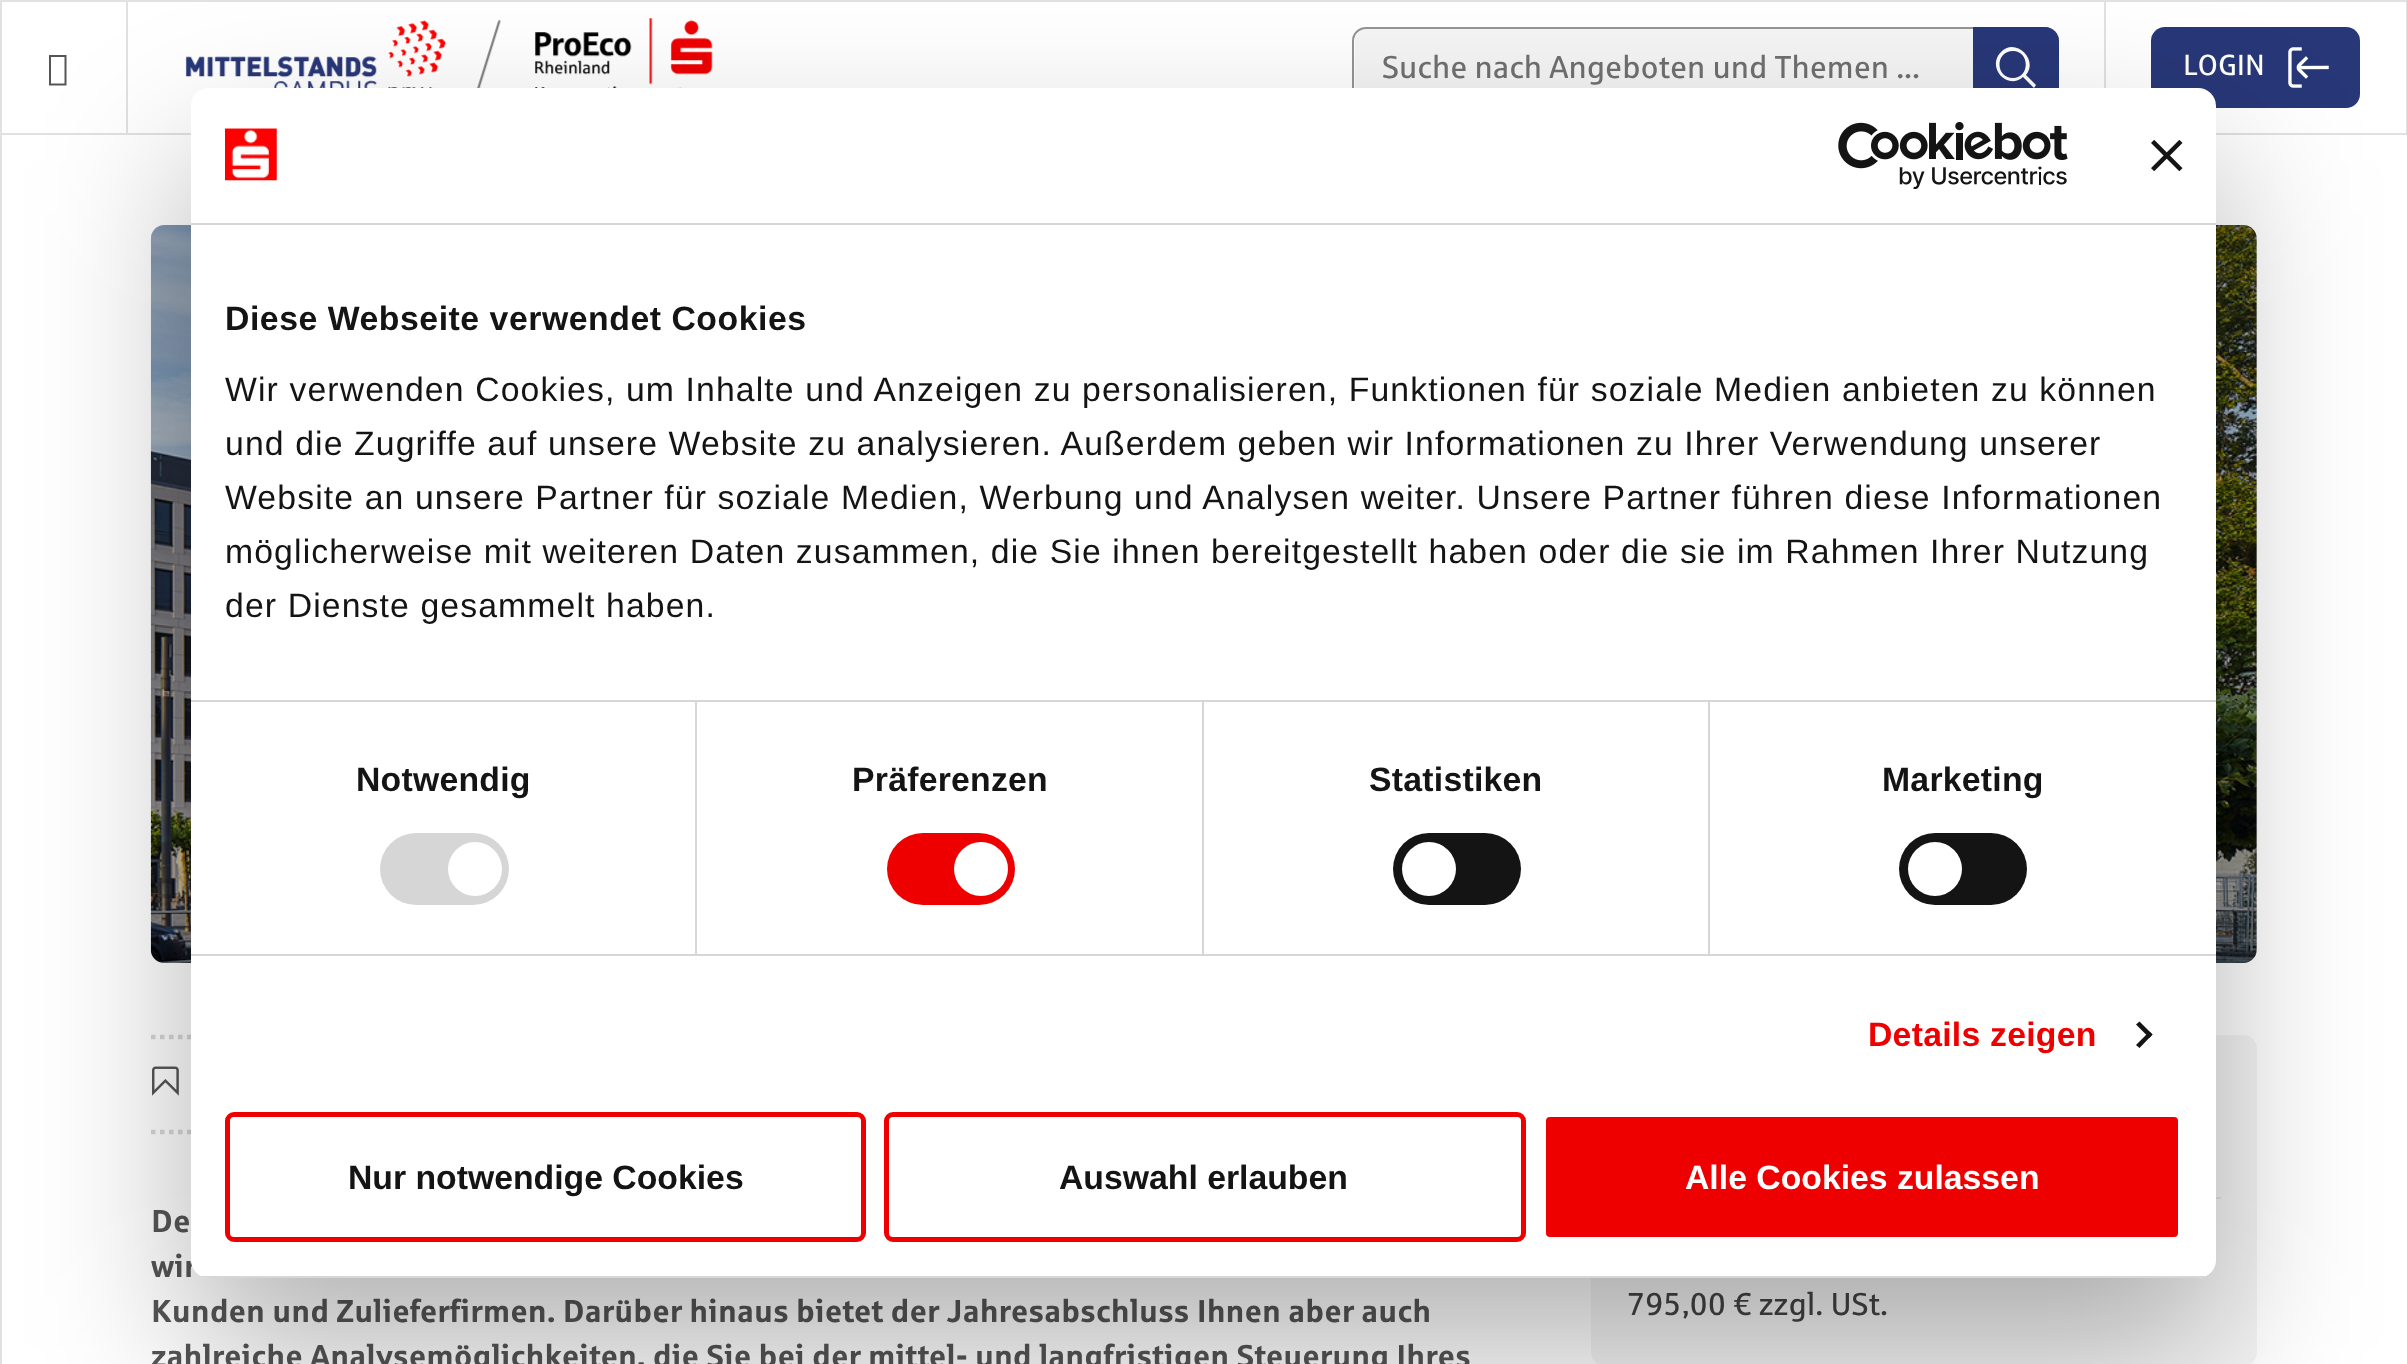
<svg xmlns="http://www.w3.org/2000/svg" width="2407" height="1364">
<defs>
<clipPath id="clip1"><rect x="191" y="88" width="2025" height="1190" rx="18"/></clipPath>
</defs>
<rect width="100%" height="100%" fill="#fff"/>
<rect x="1" y="1" width="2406" height="133" fill="none" stroke="#e1e1e1" stroke-width="2"/>
<rect x="126" y="2" width="2" height="131" fill="#e1e1e1"/>
<path d="M49 85.5v-30.5h17.5v30.5zm2-2h13.5v-26.5h-13.5z" fill="#565656"/>
<image x="185" y="18" width="528" height="70" href="media/1.png"/>
<rect x="1355" y="29" width="702" height="77" rx="11" fill="#f5f5f5"/>
<rect x="1353" y="28" width="705" height="79" rx="13" fill="none" stroke="#949494" stroke-width="2"/>
<path d="M1973 27h72c7.5 0 14 6.5 14 14v53c0 7.5-6.5 14-14 14h-72z" fill="#283778"/>
<text x="1382" y="78" style="font-family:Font;font-size:31.5px;fill:#707070">Suche nach Angeboten und Themen ...</text>
<path d="M2036 85l-10-10c13-16-11-38-25-23c-15 15 6 39 22 25l11 11zm-23-7c-18 0-18-27 0-27c17 0 17 27 0 27z" fill="#fff"/>
<rect x="2104" y="2" width="2" height="86" fill="#e1e1e1"/>
<rect x="2151" y="27" width="209" height="81" rx="14" fill="#283778"/>
<text x="2183" y="75" style="font-family:Font;font-size:29px;fill:#fff">LOGIN</text>
<image x="2288" y="47" width="41" height="41" href="media/2.png"/>
<rect y="135" width="2" height="1229" fill="#e1e1e1"/>
<image x="150" y="225" width="2107" height="738" href="media/3.png"/>
<rect x="151" y="225" width="2106" height="738" rx="14" fill="#00000033"/>
<path d="M151 1037h1386" fill="none" stroke="#d8d8d8" stroke-width="4.5" stroke-dasharray="4.5 4.5"/>
<path d="M151 1132h1386" fill="none" stroke="#d8d8d8" stroke-width="4.5" stroke-dasharray="4.5 4.5"/>
<image x="152" y="1066" width="27" height="30" href="media/4.png"/>
<text x="151" y="1232" style="font-family:Font;font-size:31.5px;font-weight:bold;fill:#565656">De</text>
<text x="151" y="1277" style="font-family:Font;font-size:31.5px;font-weight:bold;fill:#565656">wir</text>
<text x="151" y="1322" style="font-family:Font;font-size:31.5px;font-weight:bold;fill:#565656">Kunden und Zulieferfirmen. Darüber hinaus bietet der Jahresabschluss Ihnen aber auch</text>
<text x="151" y="1367" style="font-family:Font;font-size:31.5px;font-weight:bold;fill:#565656">zahlreiche Analysemöglichkeiten, die Sie bei der mittel- und langfristigen Steuerung Ihres</text>
<rect x="1591" y="1035" width="666" height="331" rx="14" fill="#f5f5f5"/>
<rect x="2216" y="1197" width="5" height="2" fill="#e3e3e3"/>
<text x="1627" y="1315" style="font-family:Font;font-size:31.5px;fill:#444">795,00 € zzgl. USt.</text>
<rect x="191" y="160" width="2025" height="1190" rx="18" fill="#0000004d" filter="blur(76.5px)"/>
<rect x="191" y="88" width="2025" height="1190" rx="18" fill="#fff"/>
<rect x="191" y="223" width="2025" height="2" fill="#d6d6d6"/>
<image x="225" y="128" width="52" height="53" href="media/5.png"/>
<image x="1838" y="122" width="230" height="67" href="media/6.png"/>
<image x="2151" y="140" width="32" height="31" href="media/7.png"/>
<rect x="191" y="700" width="2025" height="2" fill="#d6d6d6"/>
<text x="225" y="330" style="font-family:Liberation Sans;font-size:33.75px;font-weight:bold;letter-spacing:0.55px;fill:#141414">Diese Webseite verwendet Cookies</text>
<text x="225" y="401" style="font-family:Liberation Sans;font-size:33.75px;letter-spacing:1.12px;fill:#141414">Wir verwenden Cookies, um Inhalte und Anzeigen zu personalisieren, Funktionen für soziale Medien anbieten zu können</text>
<text x="225" y="455" style="font-family:Liberation Sans;font-size:33.75px;letter-spacing:1.12px;fill:#141414">und die Zugriffe auf unsere Website zu analysieren. Außerdem geben wir Informationen zu Ihrer Verwendung unserer</text>
<text x="225" y="509" style="font-family:Liberation Sans;font-size:33.75px;letter-spacing:1.12px;fill:#141414">Website an unsere Partner für soziale Medien, Werbung und Analysen weiter. Unsere Partner führen diese Informationen</text>
<text x="225" y="563" style="font-family:Liberation Sans;font-size:33.75px;letter-spacing:1.12px;fill:#141414">möglicherweise mit weiteren Daten zusammen, die Sie ihnen bereitgestellt haben oder die sie im Rahmen Ihrer Nutzung</text>
<text x="225" y="617" style="font-family:Liberation Sans;font-size:33.75px;letter-spacing:1.12px;fill:#141414">der Dienste gesammelt haben.</text>
<rect x="191" y="954" width="2025" height="2" fill="#d6d6d6"/>
<rect x="695" y="702" width="2" height="252" fill="#d6d6d6"/>
<text x="356" y="791" style="font-family:Liberation Sans;font-size:33.75px;font-weight:bold;letter-spacing:0.25px;fill:#141414">Notwendig</text>
<rect x="380" y="833" width="129" height="72" rx="36" fill="#d6d6d6"/>
<circle cx="475" cy="869" r="27" fill="#fff"/>
<rect x="1202" y="702" width="2" height="252" fill="#d6d6d6"/>
<text x="852" y="791" style="font-family:Liberation Sans;font-size:33.75px;font-weight:bold;letter-spacing:0.25px;fill:#141414">Präferenzen</text>
<rect x="887" y="833" width="128" height="72" rx="36" fill="#e00"/>
<circle cx="981" cy="869" r="27" fill="#fff"/>
<rect x="1708" y="702" width="2" height="252" fill="#d6d6d6"/>
<text x="1369" y="791" style="font-family:Liberation Sans;font-size:33.75px;font-weight:bold;letter-spacing:0.25px;fill:#141414">Statistiken</text>
<rect x="1393" y="833" width="128" height="72" rx="36" fill="#141414"/>
<circle cx="1429" cy="869" r="27" fill="#fff"/>
<text x="1882" y="791" style="font-family:Liberation Sans;font-size:33.75px;font-weight:bold;letter-spacing:0.25px;fill:#141414">Marketing</text>
<rect x="1899" y="833" width="128" height="72" rx="36" fill="#141414"/>
<circle cx="1935" cy="869" r="27" fill="#fff"/>
<text x="1868" y="1046" style="font-family:Liberation Sans;font-size:33.75px;font-weight:bold;letter-spacing:0.25px;fill:#e00">Details zeigen</text>
<path d="M2139.5 1021.5l13 13l-3 3.5l-13.5-13.5z" fill="#141414"/>
<path d="M2149.5 1031.5l3 3l-13 13.5l-3.5-3z" fill="#141414"/>
<g clip-path="url(#clip1)">
<rect x="201" y="1276" width="2005" height="2" fill="#d6d6d6"/>
</g>
<rect x="227.5" y="1114.5" width="636" height="125" rx="6.5" fill="none" stroke="#e00" stroke-width="5"/>
<text x="348" y="1189" style="font-family:Liberation Sans;font-size:33.75px;font-weight:bold;fill:#141414">Nur notwendige Cookies</text>
<rect x="886.5" y="1114.5" width="637" height="125" rx="6.5" fill="none" stroke="#e00" stroke-width="5"/>
<text x="1059" y="1189" style="font-family:Liberation Sans;font-size:33.75px;font-weight:bold;fill:#141414">Auswahl erlauben</text>
<rect x="1543.5" y="1114.5" width="637" height="125" rx="6.5" fill="#e00" stroke="#fff" stroke-width="5"/>
<text x="1685" y="1189" style="font-family:Liberation Sans;font-size:33.75px;font-weight:bold;fill:#fff">Alle Cookies zulassen</text>
</svg>
